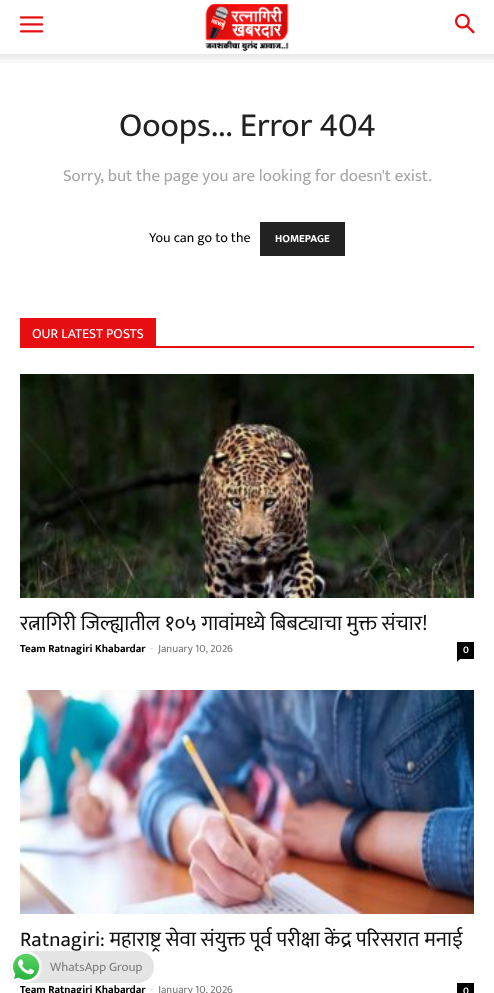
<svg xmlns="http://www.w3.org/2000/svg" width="494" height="993">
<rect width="100%" height="100%" fill="#fff"/>
<image x="20" y="16" width="24" height="17" href="media/1.png"/>
<image x="205" y="4" width="84" height="47" href="media/2.png"/>
<image x="455" y="13" width="20" height="21" href="media/3.png"/>
<image x="0" y="54" width="494" height="9" href="media/4.png"/>
<text x="119" y="136" style="font-family:Mukta;font-size:34px;fill:#222">Ooops... Error 404</text>
<text x="63" y="181" style="font-family:Mukta;font-size:17px;fill:#a6a6a6">Sorry, but the page you are looking for doesn't exist.</text>
<text x="149" y="242" style="font-family:Mukta;font-size:14px;fill:#000">You can go to the</text>
<rect x="260" y="222" width="85" height="34" fill="#222"/>
<text x="275" y="242" style="font-family:Mukta;font-size:11px;font-weight:bold;fill:#fff">HOMEPAGE</text>
<rect x="20" y="346" width="454" height="2" fill="#e70e12"/>
<rect x="20" y="318" width="136" height="28" fill="#e70e12"/>
<text x="32" y="338" style="font-family:Mukta;font-size:14px;fill:#fff">OUR LATEST POSTS</text>
<image x="20" y="374" width="454" height="224" href="media/5.png"/>
<text x="20" y="630" style="font-family:Mukta;font-size:21px;fill:#111">रत्नागिरी जिल्ह्यातील १०५ गावांमध्ये बिबट्याचा मुक्त संचार!</text>
<text x="20" y="652" style="font-family:Mukta;font-size:11px;font-weight:bold;fill:#000">Team Ratnagiri Khabardar</text>
<text x="150" y="652" style="font-family:Mukta;font-size:11px;fill:#ccc">-</text>
<text x="158" y="652" style="font-family:Mukta;font-size:11px;fill:#767676">January 10, 2026</text>
<rect x="457" y="642" width="17" height="17" fill="#000"/>
<text x="463" y="653" style="font-family:Mukta;font-size:10px;font-weight:600;fill:#fff">0</text>
<path d="M457 659h3l-3 3z" fill="#000"/>
<image x="20" y="690" width="454" height="224" href="media/6.png"/>
<text x="20" y="946" style="font-family:Mukta;font-size:21px;fill:#111">Ratnagiri: महाराष्ट्र सेवा संयुक्त पूर्व परीक्षा केंद्र परिसरात मनाई</text>
<text x="20" y="993" style="font-family:Mukta;font-size:11px;font-weight:bold;fill:#000">Team Ratnagiri Khabardar</text>
<text x="150" y="993" style="font-family:Mukta;font-size:11px;fill:#ccc">-</text>
<text x="158" y="993" style="font-family:Mukta;font-size:11px;fill:#767676">January 10, 2026</text>
<rect x="457" y="983" width="17" height="10" fill="#000"/>
<text x="463" y="994" style="font-family:Mukta;font-size:10px;font-weight:600;fill:#fff">0</text>
<rect x="10" y="951" width="144" height="32" rx="16" fill="#e4e4e4"/>
<image x="10" y="951" width="32" height="32" href="media/7.png"/>
<text x="50" y="971" style="font-family:Mukta;font-size:13px;fill:#7f7d7d">WhatsApp Group</text>
</svg>
